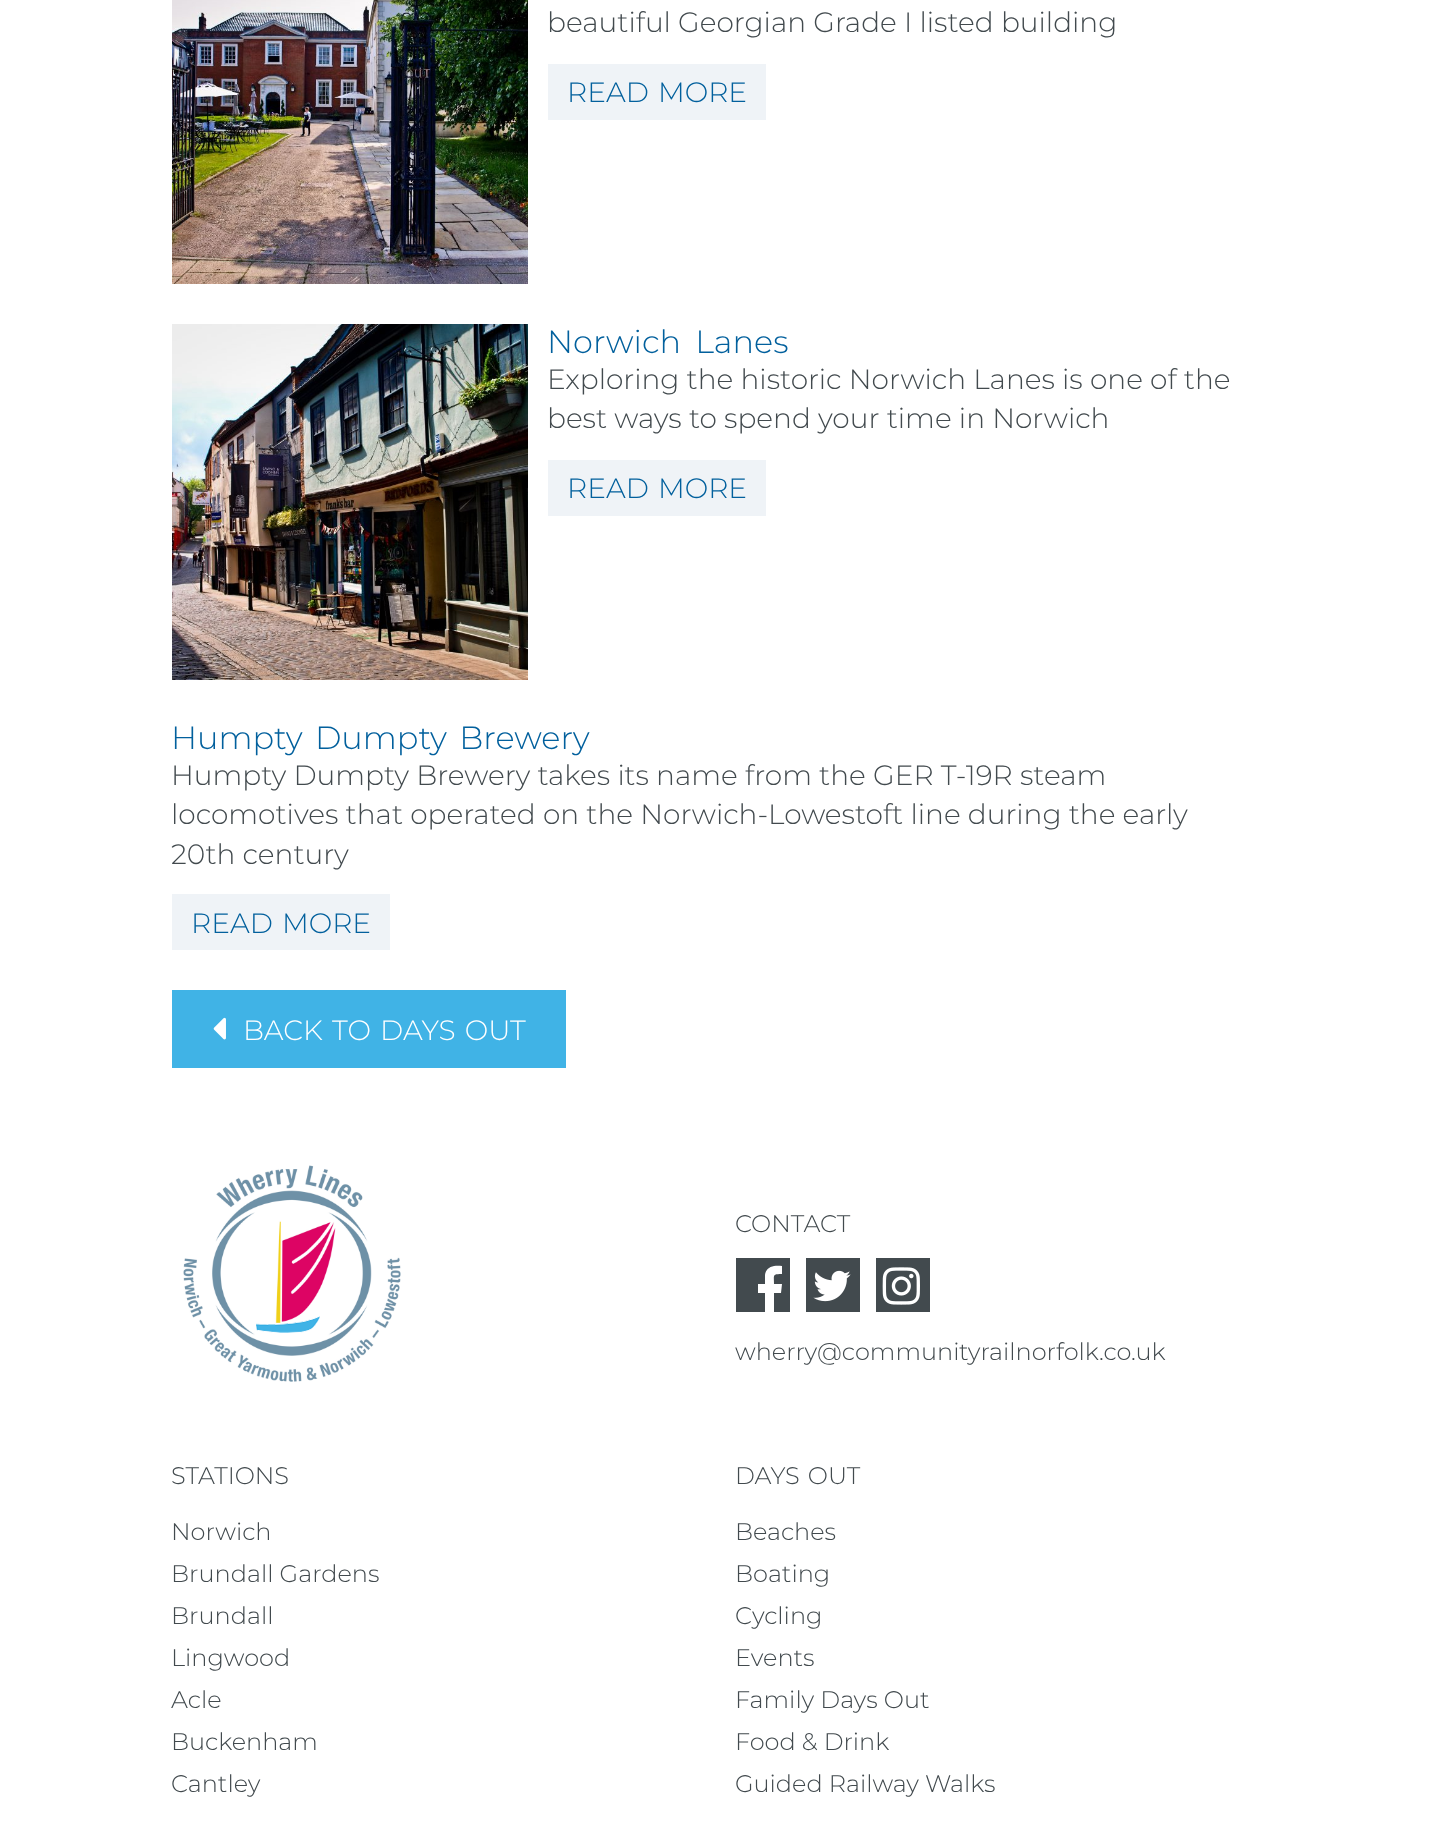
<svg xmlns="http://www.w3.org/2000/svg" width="1430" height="1822">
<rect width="100%" height="100%" fill="#fff"/>
<image x="172" y="0" width="356" height="284" href="media/1.png"/>
<text x="547" y="32" style="font-family:Montserrat;font-size:28px;font-weight:300;fill:#424a4e">beautiful Georgian Grade I listed building</text>
<rect x="548" y="64" width="218" height="56" fill="#eff3f7"/>
<text x="567" y="102" word-spacing="2" style="font-family:Montserrat;font-size:28px;font-weight:300;fill:#02609d">READ MORE</text>
<image x="172" y="324" width="356" height="356" href="media/2.png"/>
<text x="547" y="353" word-spacing="6" style="font-family:Montserrat;font-size:32px;font-weight:300;fill:#02609d">Norwich Lanes</text>
<text x="547" y="389" style="font-family:Montserrat;font-size:28px;font-weight:300;fill:#424a4e">Exploring the historic Norwich Lanes is one of the</text>
<text x="547" y="428" style="font-family:Montserrat;font-size:28px;font-weight:300;fill:#424a4e">best ways to spend your time in Norwich</text>
<rect x="548" y="460" width="218" height="56" fill="#eff3f7"/>
<text x="567" y="498" word-spacing="2" style="font-family:Montserrat;font-size:28px;font-weight:300;fill:#02609d">READ MORE</text>
<text x="171" y="749" word-spacing="4" style="font-family:Montserrat;font-size:32px;font-weight:300;fill:#02609d">Humpty Dumpty Brewery</text>
<text x="171" y="785" style="font-family:Montserrat;font-size:28px;font-weight:300;fill:#424a4e">Humpty Dumpty Brewery takes its name from the GER T-19R steam</text>
<text x="171" y="824" style="font-family:Montserrat;font-size:28px;font-weight:300;fill:#424a4e">locomotives that operated on the Norwich-Lowestoft line during the early</text>
<text x="171" y="864" style="font-family:Montserrat;font-size:28px;font-weight:300;fill:#424a4e">20th century</text>
<rect x="172" y="894" width="218" height="56" fill="#eff3f7"/>
<text x="191" y="933" word-spacing="2" style="font-family:Montserrat;font-size:28px;font-weight:300;fill:#02609d">READ MORE</text>
<rect x="172" y="990" width="394" height="78" fill="#40b3e6"/>
<image x="213" y="1017" width="13" height="23" href="media/3.png"/>
<text x="243" y="1040" word-spacing="2" style="font-family:Montserrat;font-size:28px;font-weight:300;fill:#fff">BACK TO DAYS OUT</text>
<image x="183" y="1165" width="218" height="217" href="media/4.png"/>
<text x="735" y="1232" style="font-family:Montserrat;font-size:24px;font-weight:300;fill:#424a4e">CONTACT</text>
<rect x="736" y="1258" width="54" height="54" fill="#424a4e"/>
<path d="M765 1314v-21h-7v-9h7v-9c1-9 10-10 17-9v8c-10 0-8 1-8 10h8l-1 9h-7v21" fill="#fff"/>
<rect x="806" y="1258" width="54" height="54" fill="#424a4e"/>
<image x="813" y="1270" width="38" height="32" href="media/5.png"/>
<rect x="876" y="1258" width="54" height="54" fill="#424a4e"/>
<image x="882" y="1267" width="38" height="38" href="media/6.png"/>
<text x="735" y="1360" style="font-family:Montserrat;font-size:24px;font-weight:300;fill:#424a4e">wherry@communityrailnorfolk.co.uk</text>
<text x="171" y="1484" style="font-family:Montserrat;font-size:24px;font-weight:300;fill:#424a4e">STATIONS</text>
<text x="171" y="1540" style="font-family:Montserrat;font-size:24px;font-weight:300;fill:#424a4e">Norwich</text>
<text x="171" y="1582" style="font-family:Montserrat;font-size:24px;font-weight:300;fill:#424a4e">Brundall Gardens</text>
<text x="171" y="1624" style="font-family:Montserrat;font-size:24px;font-weight:300;fill:#424a4e">Brundall</text>
<text x="171" y="1666" style="font-family:Montserrat;font-size:24px;font-weight:300;fill:#424a4e">Lingwood</text>
<text x="171" y="1708" style="font-family:Montserrat;font-size:24px;font-weight:300;fill:#424a4e">Acle</text>
<text x="171" y="1750" style="font-family:Montserrat;font-size:24px;font-weight:300;fill:#424a4e">Buckenham</text>
<text x="171" y="1792" style="font-family:Montserrat;font-size:24px;font-weight:300;fill:#424a4e">Cantley</text>
<text x="735" y="1484" word-spacing="2" style="font-family:Montserrat;font-size:24px;font-weight:300;fill:#424a4e">DAYS OUT</text>
<text x="735" y="1540" style="font-family:Montserrat;font-size:24px;font-weight:300;fill:#424a4e">Beaches</text>
<text x="735" y="1582" style="font-family:Montserrat;font-size:24px;font-weight:300;fill:#424a4e">Boating</text>
<text x="735" y="1624" style="font-family:Montserrat;font-size:24px;font-weight:300;fill:#424a4e">Cycling</text>
<text x="735" y="1666" style="font-family:Montserrat;font-size:24px;font-weight:300;fill:#424a4e">Events</text>
<text x="735" y="1708" style="font-family:Montserrat;font-size:24px;font-weight:300;fill:#424a4e">Family Days Out</text>
<text x="735" y="1750" style="font-family:Montserrat;font-size:24px;font-weight:300;fill:#424a4e">Food &amp; Drink</text>
<text x="735" y="1792" style="font-family:Montserrat;font-size:24px;font-weight:300;fill:#424a4e">Guided Railway Walks</text>
</svg>
